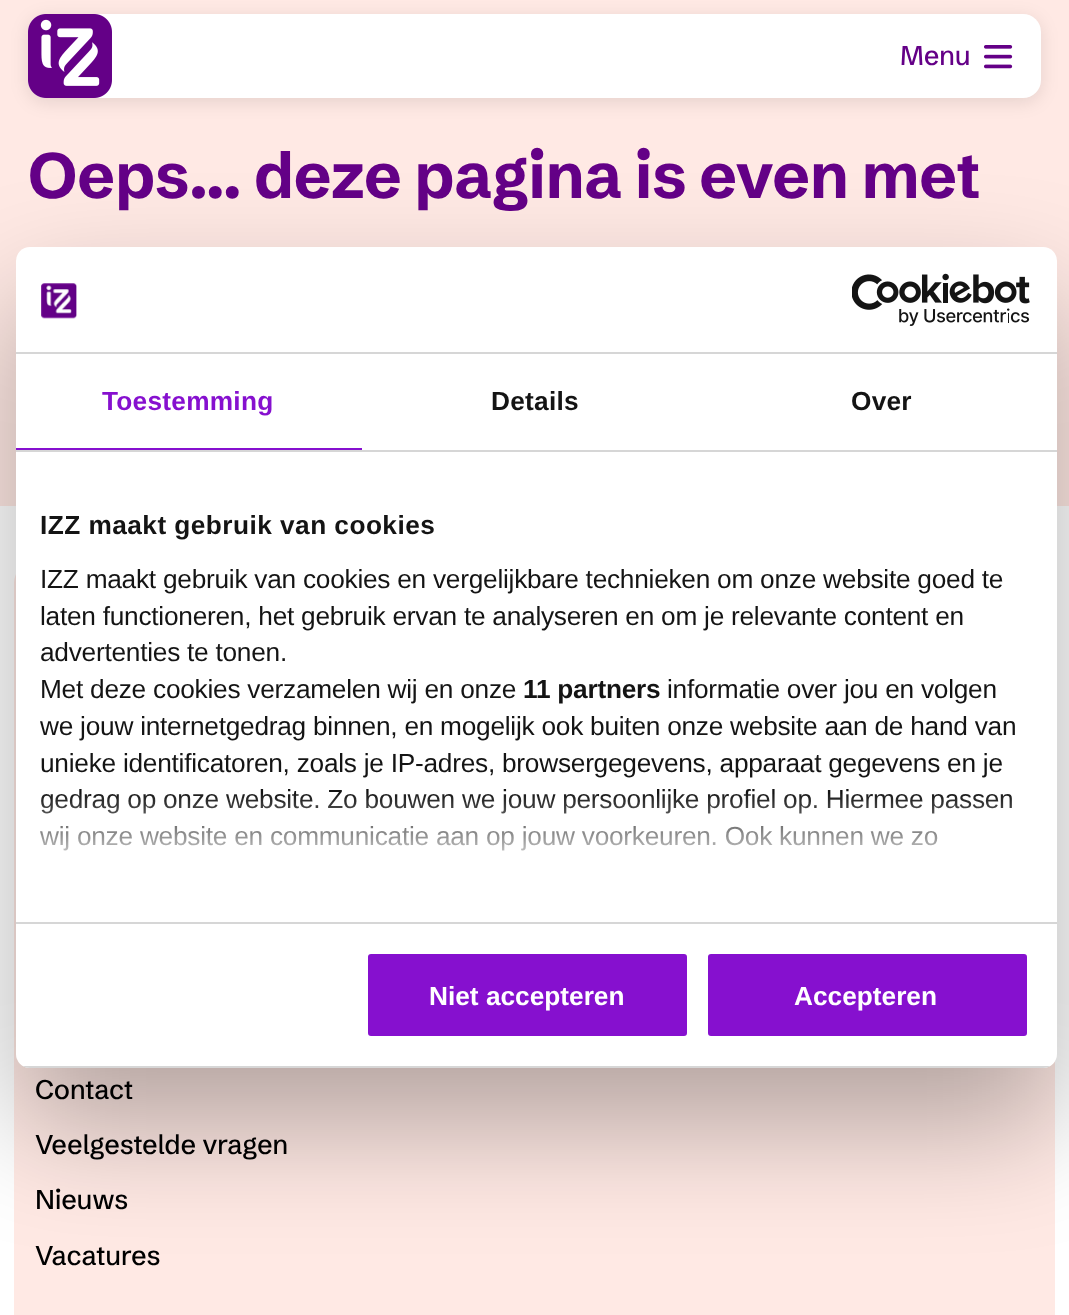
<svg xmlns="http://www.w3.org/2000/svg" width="1069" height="1315">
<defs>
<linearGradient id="g1" gradientUnits="userSpaceOnUse" x1="524" y1="923" x2="524" y2="792"><stop offset="0" stop-color="#fff"/><stop offset="0.5" stop-color="#fff" stop-opacity="0.8"/><stop offset="1" stop-color="#fff" stop-opacity="0"/></linearGradient>
<clipPath id="clip1"><rect x="16" y="247" width="1041" height="821" rx="14"/></clipPath>
</defs>
<rect width="100%" height="100%" fill="#fff"/>
<rect width="1069" height="506" fill="#ffe9e4"/>
<rect x="28" y="18" width="1013" height="84" rx="18" fill="#0000001a" filter="blur(9px)"/>
<rect x="28" y="14" width="1013" height="84" rx="18" fill="#fff"/>
<image x="28" y="14" width="84" height="84" href="media/1.png"/>
<text x="900" y="65" style="font-family:Schibsted Grotesk;font-size:27px;font-weight:500;letter-spacing:-0.25px;fill:#640087">Menu</text>
<image x="984" y="45" width="29" height="24" href="media/2.png"/>
<text x="28" y="198" style="font-family:Schibsted Grotesk;font-size:64.1px;font-weight:bold;letter-spacing:-0.65px;fill:#640087">Oeps... deze pagina is even met</text>
<rect x="14" y="562" width="1041" height="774" rx="21" fill="#ffe9e4"/>
<text x="35" y="1099" style="font-family:Schibsted Grotesk;font-size:27px;font-weight:500;letter-spacing:-0.25px;fill:#000">Contact</text>
<text x="35" y="1154" style="font-family:Schibsted Grotesk;font-size:27px;font-weight:500;letter-spacing:-0.25px;fill:#000">Veelgestelde vragen</text>
<text x="35" y="1209" style="font-family:Schibsted Grotesk;font-size:27px;font-weight:500;letter-spacing:-0.25px;fill:#000">Nieuws</text>
<text x="35" y="1265" style="font-family:Schibsted Grotesk;font-size:27px;font-weight:500;letter-spacing:-0.25px;fill:#000">Vacatures</text>
<rect x="16" y="303" width="1041" height="821" rx="14" fill="#0000004d" filter="blur(59.5px)"/>
<rect x="16" y="247" width="1041" height="821" rx="14" fill="#fff"/>
<rect x="16" y="352" width="1041" height="2" fill="#d6d6d6"/>
<image x="41" y="283" width="36" height="36" href="media/3.png"/>
<image x="852" y="273" width="178" height="53" href="media/4.png"/>
<rect x="16" y="450" width="1041" height="2" fill="#d6d6d6"/>
<rect x="16" y="448" width="346" height="2" fill="#8610cf"/>
<text x="102" y="410" style="font-family:Liberation Sans;font-size:26.25px;font-weight:bold;letter-spacing:0.25px;fill:#8610cf">Toestemming</text>
<text x="491" y="410" style="font-family:Liberation Sans;font-size:26.25px;font-weight:bold;letter-spacing:0.25px;fill:#141414">Details</text>
<text x="851" y="410" style="font-family:Liberation Sans;font-size:26.25px;font-weight:bold;letter-spacing:0.25px;fill:#141414">Over</text>
<rect x="16" y="922" width="1041" height="2" fill="#d6d6d6"/>
<text x="40" y="534" style="font-family:Liberation Sans;font-size:26.25px;font-weight:bold;letter-spacing:0.45px;fill:#141414">IZZ maakt gebruik van cookies</text>
<text x="40" y="588" style="font-family:Liberation Sans;font-size:26.25px;letter-spacing:-0.25px;fill:#141414">IZZ maakt gebruik van cookies en vergelijkbare technieken om onze website goed te</text>
<text x="40" y="625" style="font-family:Liberation Sans;font-size:26.25px;letter-spacing:-0.25px;fill:#141414">laten functioneren, het gebruik ervan te analyseren en om je relevante content en</text>
<text x="40" y="661" style="font-family:Liberation Sans;font-size:26.25px;letter-spacing:-0.25px;fill:#141414">advertenties te tonen.</text>
<text x="40" y="698" style="font-family:Liberation Sans;font-size:26.25px;letter-spacing:-0.25px;fill:#141414">Met deze cookies verzamelen wij en onze</text>
<text x="523" y="698" style="font-family:Liberation Sans;font-size:26.25px;font-weight:bold;letter-spacing:-0.25px;fill:#141414">11 partners</text>
<text x="667" y="698" style="font-family:Liberation Sans;font-size:26.25px;letter-spacing:-0.25px;fill:#141414">informatie over jou en volgen</text>
<text x="40" y="735" style="font-family:Liberation Sans;font-size:26.25px;letter-spacing:-0.25px;fill:#141414">we jouw internetgedrag binnen, en mogelijk ook buiten onze website aan de hand van</text>
<text x="40" y="772" style="font-family:Liberation Sans;font-size:26.25px;letter-spacing:-0.25px;fill:#141414">unieke identificatoren, zoals je IP-adres, browsergegevens, apparaat gegevens en je</text>
<text x="40" y="808" style="font-family:Liberation Sans;font-size:26.25px;letter-spacing:-0.25px;fill:#141414">gedrag op onze website. Zo bouwen we jouw persoonlijke profiel op. Hiermee passen</text>
<text x="40" y="845" style="font-family:Liberation Sans;font-size:26.25px;letter-spacing:-0.25px;fill:#141414">wij onze website en communicatie aan op jouw voorkeuren. Ook kunnen we zo</text>
<rect x="40" y="794" width="972" height="57" fill="url(#g1)"/>
<g clip-path="url(#clip1)">
<rect x="16" y="1066" width="1041" height="2" fill="#d6d6d6"/>
</g>
<rect x="366" y="952" width="323" height="86" rx="5" fill="#8610cf" stroke="#fff" stroke-width="4"/>
<text x="429" y="1005" style="font-family:Liberation Sans;font-size:26.25px;font-weight:bold;fill:#fff">Niet accepteren</text>
<rect x="706" y="952" width="323" height="86" rx="5" fill="#8610cf" stroke="#fff" stroke-width="4"/>
<text x="794" y="1005" style="font-family:Liberation Sans;font-size:26.25px;font-weight:bold;fill:#fff">Accepteren</text>
</svg>
